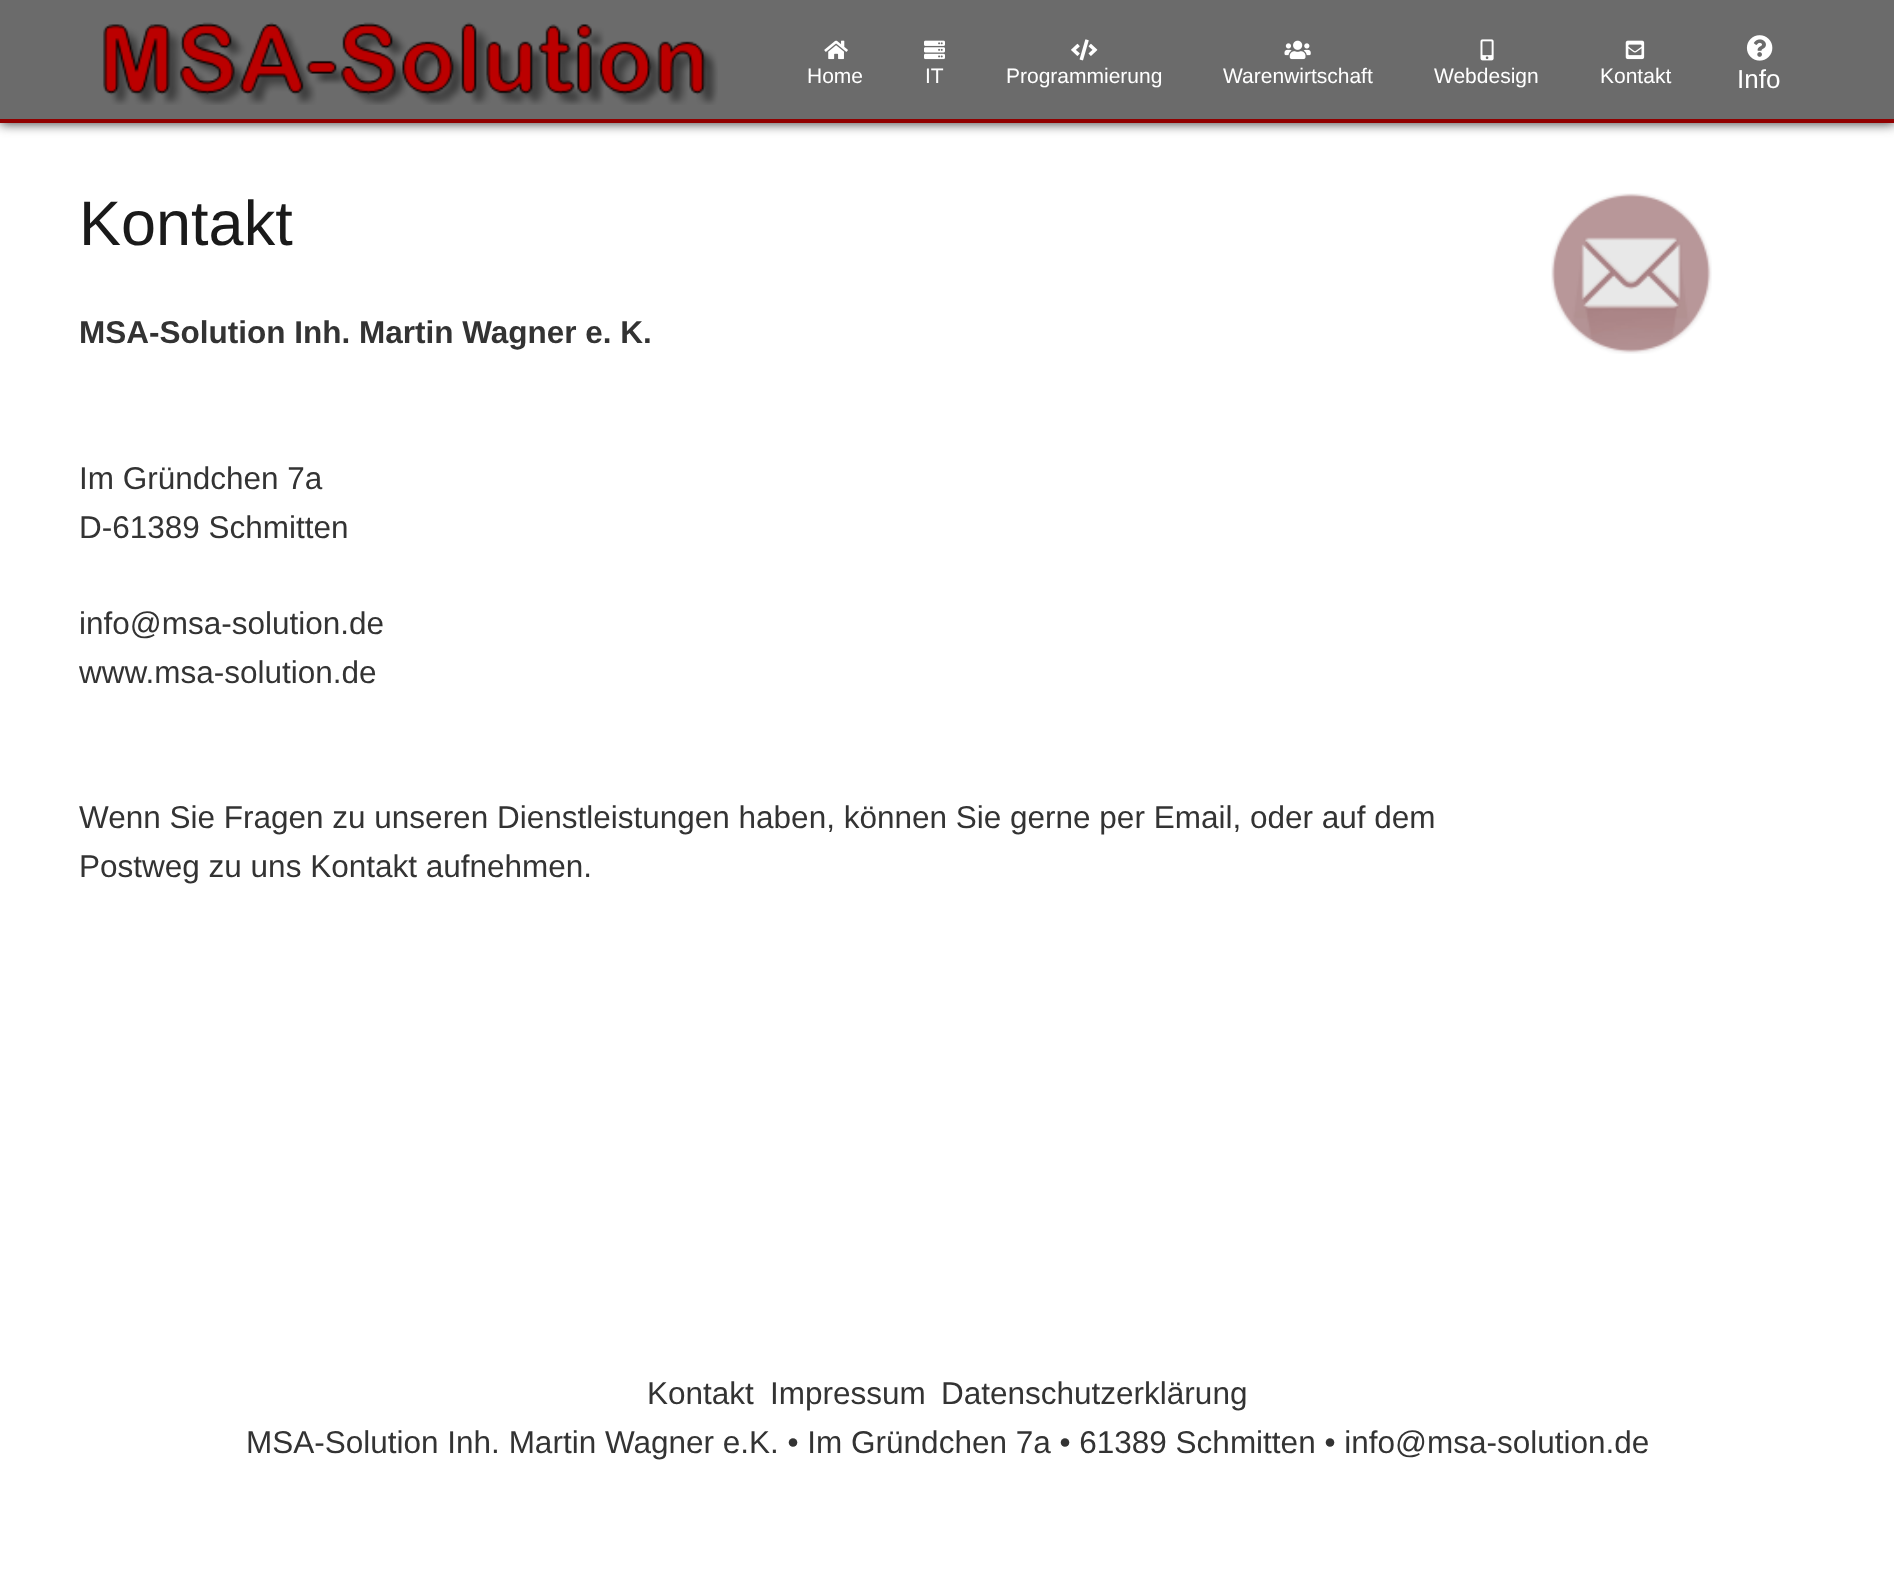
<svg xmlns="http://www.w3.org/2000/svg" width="1894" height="1592">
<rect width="100%" height="100%" fill="#fff"/>
<rect y="2" width="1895" height="122" fill="#444" filter="blur(6px)"/>
<rect width="1894" height="119" fill="#6b6b6b"/>
<image x="103" y="22" width="615" height="83" href="media/1.png"/>
<image x="824" y="40" width="24" height="20" href="media/2.png"/>
<text x="807" y="83" style="font-family:Liberation Sans;font-size:21px;fill:#fff">Home</text>
<image x="924" y="40" width="21" height="20" href="media/3.png"/>
<text x="925" y="83" style="font-family:Liberation Sans;font-size:21px;fill:#fff">IT</text>
<image x="1071" y="39" width="27" height="22" href="media/4.png"/>
<text x="1006" y="83" style="font-family:Liberation Sans;font-size:21px;fill:#fff">Programmierung</text>
<image x="1284" y="40" width="27" height="20" href="media/5.png"/>
<text x="1223" y="83" style="font-family:Liberation Sans;font-size:21px;fill:#fff">Warenwirtschaft</text>
<image x="1480" y="39" width="14" height="22" href="media/6.png"/>
<text x="1434" y="83" style="font-family:Liberation Sans;font-size:21px;fill:#fff">Webdesign</text>
<image x="1625" y="40" width="20" height="20" href="media/7.png"/>
<text x="1600" y="83" style="font-family:Liberation Sans;font-size:21px;fill:#fff">Kontakt</text>
<image x="1746" y="35" width="27" height="26" href="media/8.png"/>
<text x="1737" y="88" style="font-family:Liberation Sans;font-size:26px;fill:#fff">Info</text>
<rect y="119" width="1894" height="4" fill="#910000"/>
<text x="79" y="245" style="font-family:Liberation Sans;font-size:63px;fill:#1a1a1a">Kontakt</text>
<text x="79" y="343" style="font-family:Liberation Sans;font-size:31.5px;font-weight:bold;fill:#333">MSA-Solution Inh. Martin Wagner e. K.</text>
<text x="79" y="489" style="font-family:Liberation Sans;font-size:31.5px;fill:#333">Im Gründchen 7a</text>
<text x="79" y="538" style="font-family:Liberation Sans;font-size:31.5px;fill:#333">D-61389 Schmitten</text>
<text x="79" y="634" style="font-family:Liberation Sans;font-size:31.5px;fill:#333">info@msa-solution.de</text>
<text x="79" y="683" style="font-family:Liberation Sans;font-size:31.5px;fill:#333">www.msa-solution.de</text>
<text x="79" y="828" style="font-family:Liberation Sans;font-size:31.5px;fill:#333">Wenn Sie Fragen zu unseren Dienstleistungen haben, können Sie gerne per Email, oder auf dem</text>
<text x="79" y="877" style="font-family:Liberation Sans;font-size:31.5px;fill:#333">Postweg zu uns Kontakt aufnehmen.</text>
<image x="1551" y="193" width="161" height="161" href="media/9.png"/>
<text x="647" y="1404" style="font-family:Liberation Sans;font-size:31.5px;fill:#333">Kontakt</text>
<text x="770" y="1404" style="font-family:Liberation Sans;font-size:31.5px;fill:#333">Impressum</text>
<text x="941" y="1404" style="font-family:Liberation Sans;font-size:31.5px;fill:#333">Datenschutzerklärung</text>
<text x="246" y="1453" style="font-family:Liberation Sans;font-size:31.5px;fill:#333">MSA-Solution Inh. Martin Wagner e.K. • Im Gründchen 7a • 61389 Schmitten • info@msa-solution.de</text>
</svg>
